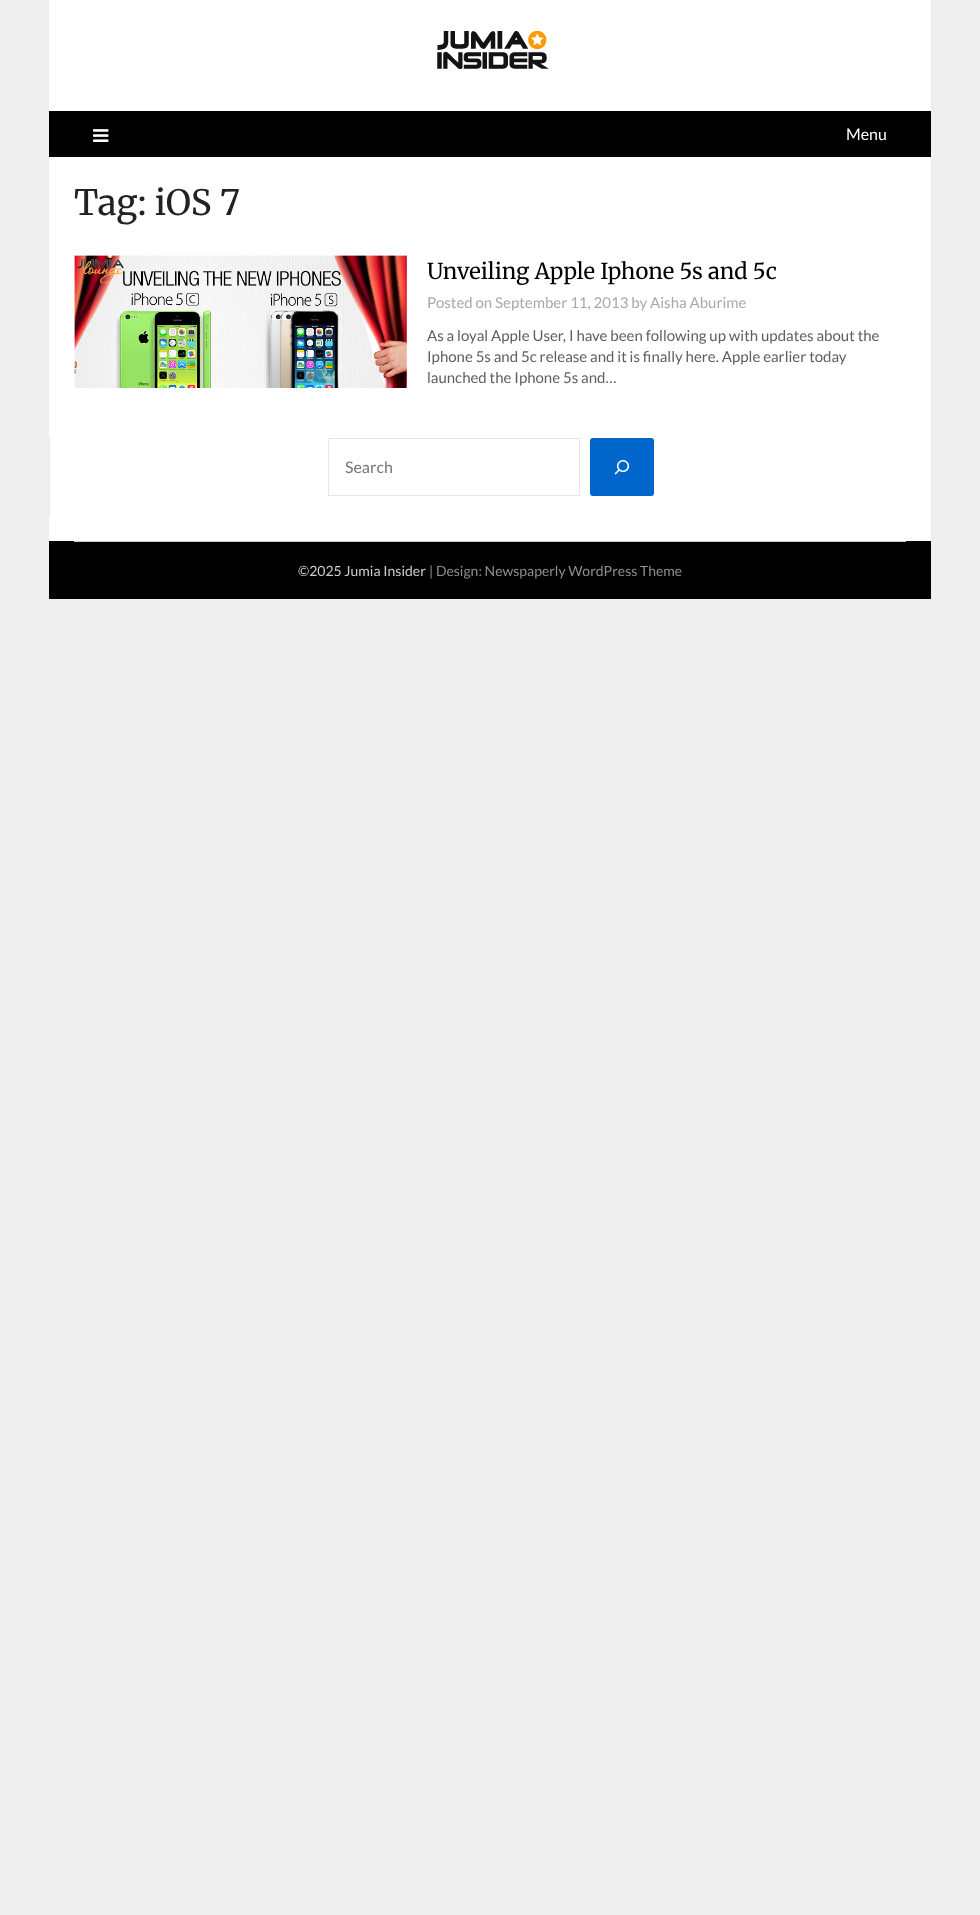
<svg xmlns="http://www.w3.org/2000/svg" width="980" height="1915">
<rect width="100%" height="100%" fill="#eee"/>
<rect x="49" width="882" height="111" fill="#fff"/>
<image x="437" y="30" width="112" height="39" href="media/1.png"/>
<rect x="49" y="111" width="882" height="46" fill="#000"/>
<image x="93" y="129" width="16" height="13" href="media/2.png"/>
<text x="846" y="140" style="font-family:Lato;font-size:16px;fill:#fff">Menu</text>
<rect x="49" y="157" width="882" height="384" fill="#fff"/>
<text x="74" y="215" style="font-family:Merriweather;font-size:35px;fill:#222">Tag: iOS 7</text>
<image x="74" y="255" width="333" height="133" href="media/3.png"/>
<text x="427" y="279" style="font-family:Merriweather;font-size:22px;fill:#000">Unveiling Apple Iphone 5s and 5c</text>
<text x="427" y="308" style="font-family:Lato;font-size:15px;fill:#a8a8a8">Posted on September 11, 2013 by Aisha Aburime</text>
<text x="427" y="341" style="font-family:Lato;font-size:15px;fill:#5e5e5e">As a loyal Apple User, I have been following up with updates about the</text>
<text x="427" y="362" style="font-family:Lato;font-size:15px;fill:#5e5e5e">Iphone 5s and 5c release and it is finally here. Apple earlier today</text>
<text x="427" y="383" style="font-family:Lato;font-size:15px;fill:#5e5e5e">launched the Iphone 5s and…</text>
<rect x="49" y="438" width="1" height="78" fill="#ececec"/>
<rect x="328.5" y="438.5" width="251" height="57" fill="none" stroke="#e5e6e9"/>
<text x="345" y="473" style="font-family:Lato;font-size:16px;fill:#757575">Search</text>
<rect x="590" y="438" width="64" height="58" rx="3" fill="#06c"/>
<image x="614" y="460" width="16" height="15" href="media/4.png"/>
<rect x="49" y="541" width="882" height="58" fill="#000"/>
<rect x="74" y="541" width="832" height="1" fill="#ccc"/>
<text x="298" y="576" style="font-family:Lato;font-size:14px;fill:#ccc">©2025 Jumia Insider</text>
<text x="429" y="576" style="font-family:Lato;font-size:14px;fill:#8f8f8f">| Design: Newspaperly WordPress Theme</text>
</svg>
